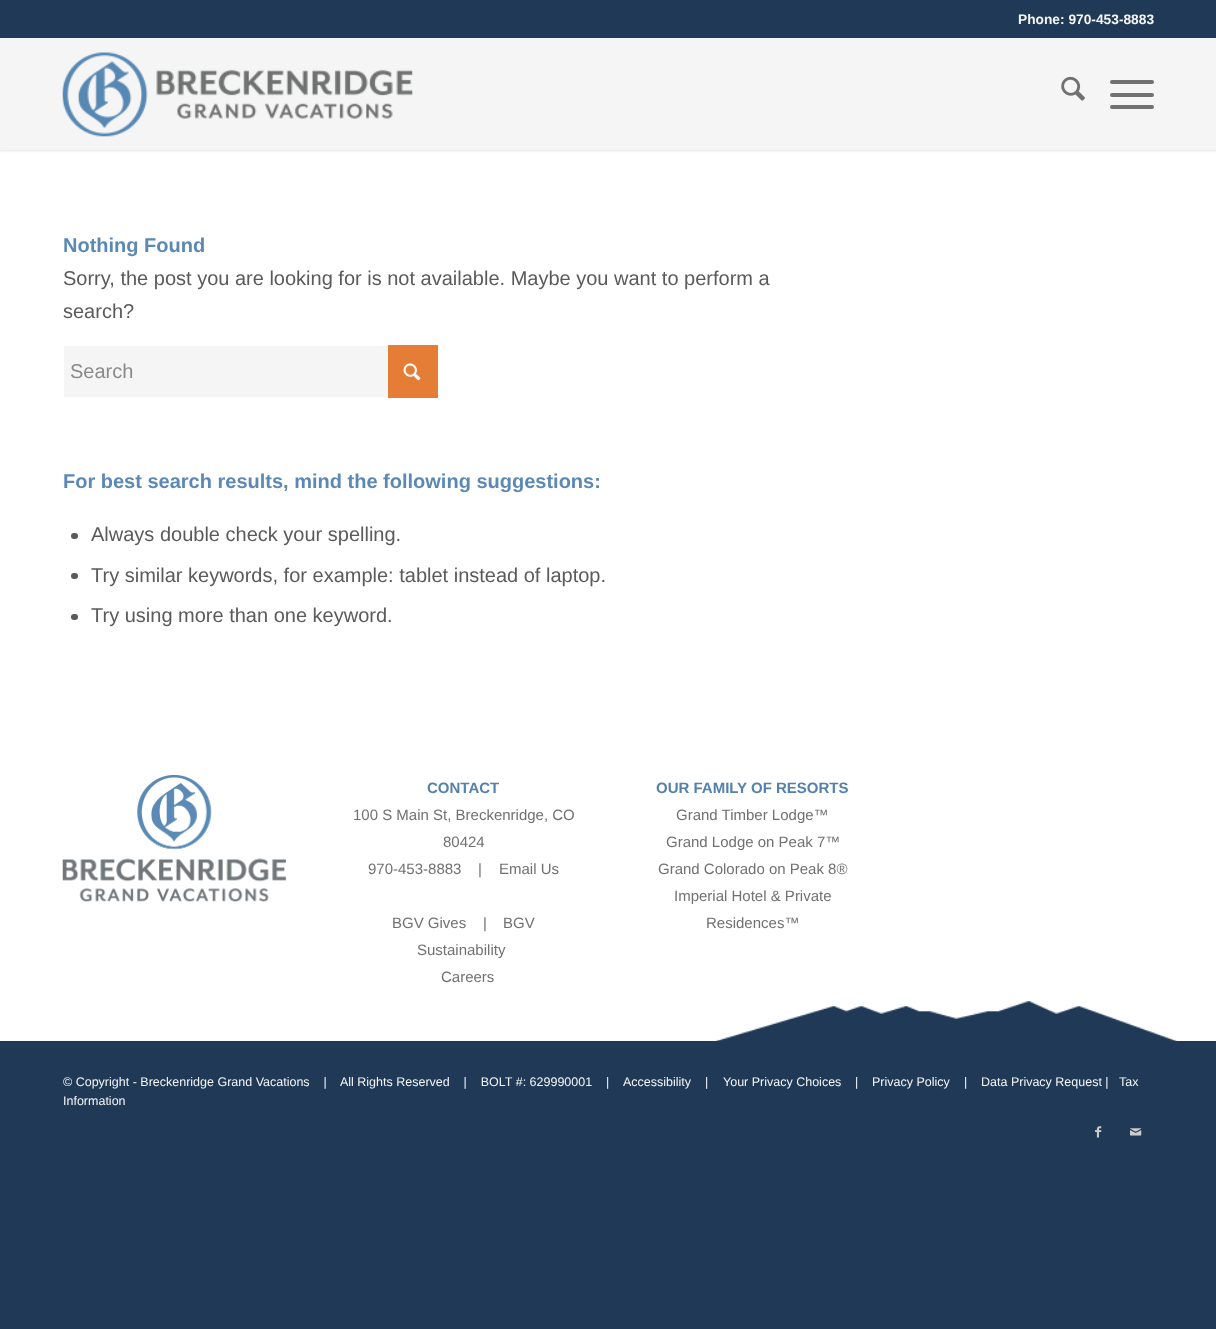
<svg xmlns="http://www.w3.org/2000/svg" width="1216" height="1329">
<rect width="100%" height="100%" fill="#1f3956"/>
<rect y="150" width="1216" height="891" fill="#fff"/>
<rect x="-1" y="-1" width="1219" height="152" fill="#0000001a" filter="blur(1px)"/>
<rect width="1216" height="38" fill="#1f3956"/>
<text x="1018" y="24" style="font-family:Liberation Sans;font-size:13.75px;font-weight:bold;fill:#f5f5f5">Phone: 970-453-8883</text>
<rect y="38" width="1216" height="112" fill="#f5f5f5"/>
<image x="62" y="52" width="351" height="85" href="media/1.png"/>
<image x="1061" y="76" width="24" height="25" href="media/2.png"/>
<rect x="1110" y="93" width="44" height="4" rx="2" fill="#717171"/>
<rect x="1110" y="80" width="44" height="4" rx="2" fill="#717171"/>
<rect x="1110" y="105" width="44" height="4" rx="2" fill="#717171"/>
<text x="63" y="252" style="font-family:Liberation Sans;font-size:20px;font-weight:bold;fill:#5b89b4">Nothing Found</text>
<text x="63" y="285" style="font-family:Liberation Sans;font-size:20px;fill:#5a5a5a">Sorry, the post you are looking for is not available. Maybe you want to perform a</text>
<text x="63" y="318" style="font-family:Liberation Sans;font-size:20px;fill:#5a5a5a">search?</text>
<rect x="64" y="346" width="324" height="51" fill="#f5f5f5"/>
<text x="70" y="378" style="font-family:Liberation Sans;font-size:20px;fill:#8a8a8a">Search</text>
<rect x="388" y="345" width="50" height="53" fill="#e67d37"/>
<image x="403" y="363" width="18" height="18" href="media/3.png"/>
<text x="63" y="488" style="font-family:Liberation Sans;font-size:20px;font-weight:bold;fill:#5b89b4">For best search results, mind the following suggestions:</text>
<rect x="71" y="533" width="7" height="6" rx="3" fill="#5a5a5a"/>
<text x="91" y="541" style="font-family:Liberation Sans;font-size:20px;fill:#5a5a5a">Always double check your spelling.</text>
<rect x="71" y="573" width="7" height="6" rx="3" fill="#5a5a5a"/>
<text x="91" y="582" style="font-family:Liberation Sans;font-size:20px;fill:#5a5a5a">Try similar keywords, for example: tablet instead of laptop.</text>
<rect x="71" y="614" width="7" height="6" rx="3" fill="#5a5a5a"/>
<text x="91" y="622" style="font-family:Liberation Sans;font-size:20px;fill:#5a5a5a">Try using more than one keyword.</text>
<image x="716" y="1001" width="462" height="40" href="media/4.png"/>
<image x="62" y="775" width="225" height="127" href="media/5.png"/>
<text x="427" y="793" style="font-family:Liberation Sans;font-size:15px;font-weight:bold;fill:#5381ac">CONTACT</text>
<text x="353" y="820" style="font-family:Liberation Sans;font-size:15px;fill:#717171">100 S Main St, Breckenridge, CO</text>
<text x="443" y="847" style="font-family:Liberation Sans;font-size:15px;fill:#717171">80424</text>
<text x="368" y="874" style="font-family:Liberation Sans;font-size:15px;fill:#717171">970-453-8883</text>
<text x="478" y="874" style="font-family:Liberation Sans;font-size:15px;fill:#717171">|</text>
<text x="499" y="874" style="font-family:Liberation Sans;font-size:15px;fill:#717171">Email Us</text>
<text x="392" y="928" style="font-family:Liberation Sans;font-size:15px;fill:#717171">BGV Gives</text>
<text x="483" y="928" style="font-family:Liberation Sans;font-size:15px;fill:#717171">|</text>
<text x="503" y="928" style="font-family:Liberation Sans;font-size:15px;fill:#717171">BGV</text>
<text x="417" y="955" style="font-family:Liberation Sans;font-size:15px;fill:#717171">Sustainability</text>
<text x="441" y="982" style="font-family:Liberation Sans;font-size:15px;fill:#717171">Careers</text>
<text x="656" y="793" style="font-family:Liberation Sans;font-size:15px;font-weight:bold;fill:#5381ac">OUR FAMILY OF RESORTS</text>
<text x="676" y="820" style="font-family:Liberation Sans;font-size:15px;fill:#717171">Grand Timber Lodge™</text>
<text x="666" y="847" style="font-family:Liberation Sans;font-size:15px;fill:#717171">Grand Lodge on Peak 7™</text>
<text x="658" y="874" style="font-family:Liberation Sans;font-size:15px;fill:#717171">Grand Colorado on Peak 8®</text>
<text x="674" y="901" style="font-family:Liberation Sans;font-size:15px;fill:#717171">Imperial Hotel &amp; Private</text>
<text x="706" y="928" style="font-family:Liberation Sans;font-size:15px;fill:#717171">Residences™</text>
<text x="63" y="1086" style="font-family:Liberation Sans;font-size:12.5px;fill:#f5f5f5" xml:space="preserve">© Copyright - Breckenridge Grand Vacations    |    All Rights Reserved    |    BOLT #: 629990001    |</text>
<text x="623" y="1086" style="font-family:Liberation Sans;font-size:12.5px;fill:#f5f5f5">Accessibility</text>
<text x="705" y="1086" style="font-family:Liberation Sans;font-size:12.5px;fill:#f5f5f5">|</text>
<text x="723" y="1086" style="font-family:Liberation Sans;font-size:12.5px;fill:#f5f5f5">Your Privacy Choices</text>
<text x="855" y="1086" style="font-family:Liberation Sans;font-size:12.5px;fill:#f5f5f5">|</text>
<text x="872" y="1086" style="font-family:Liberation Sans;font-size:12.5px;fill:#f5f5f5">Privacy Policy</text>
<text x="964" y="1086" style="font-family:Liberation Sans;font-size:12.5px;fill:#f5f5f5">|</text>
<text x="981" y="1086" style="font-family:Liberation Sans;font-size:12.5px;fill:#f5f5f5">Data Privacy Request |</text>
<text x="1119" y="1086" style="font-family:Liberation Sans;font-size:12.5px;fill:#f5f5f5">Tax</text>
<text x="63" y="1105" style="font-family:Liberation Sans;font-size:12.5px;fill:#f5f5f5">Information</text>
<image x="1095" y="1126" width="7" height="12" href="media/6.png"/>
<image x="1130" y="1128" width="12" height="8" href="media/7.png"/>
</svg>
